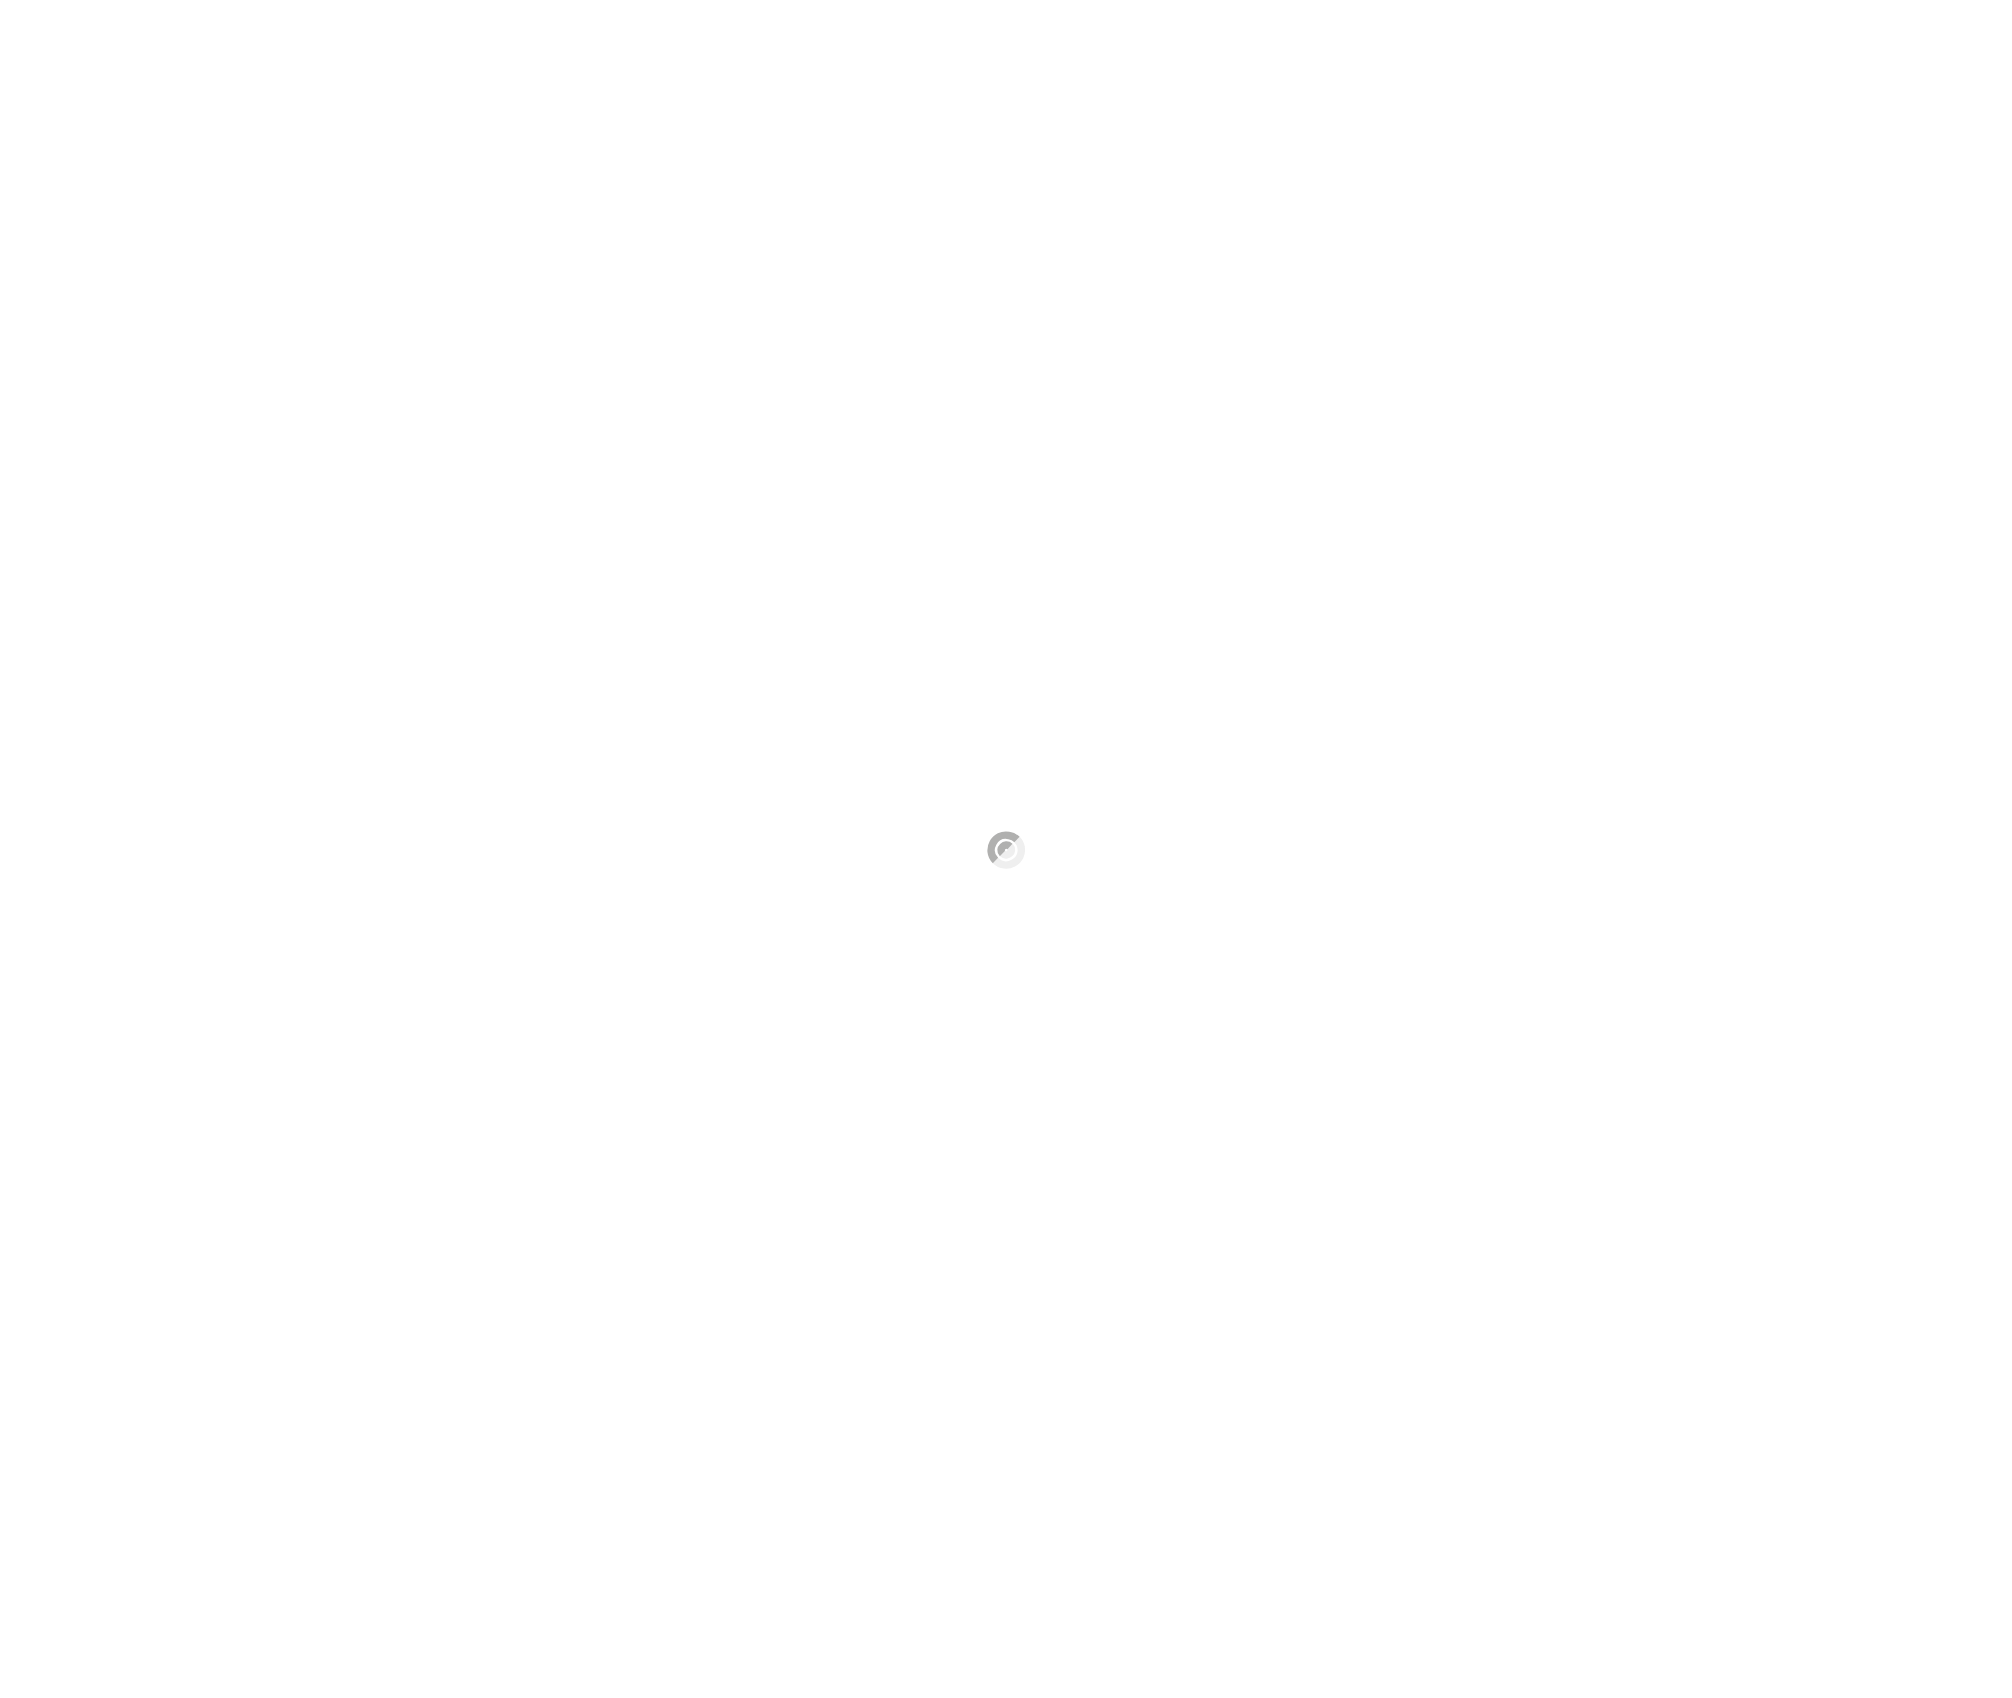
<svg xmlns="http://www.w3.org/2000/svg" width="2012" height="1698">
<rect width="100%" height="100%" fill="#fff"/>
<path d="M1010 846.5c4.5 4.5-2.5 11.5-7.5 7" fill="none" stroke="#efefef" stroke-width="7.5"/>
<path d="M1002.5 853.5c-4.5-4.5 2.5-11.5 7.5-7" fill="none" stroke="#b0b0af" stroke-width="7.5"/>
<path d="M1017 839.5c2 2 3.5 4.5 4 7.5c3 14.5-15 24-25.5 13.5" fill="none" stroke="#efefef" stroke-width="7.5"/>
<path d="M995.5 860.5c-10.5-10.5-.5-28 13.5-25c3 .5 6 2 8 4" fill="none" stroke="#b0b0af" stroke-width="7.5"/>
</svg>
